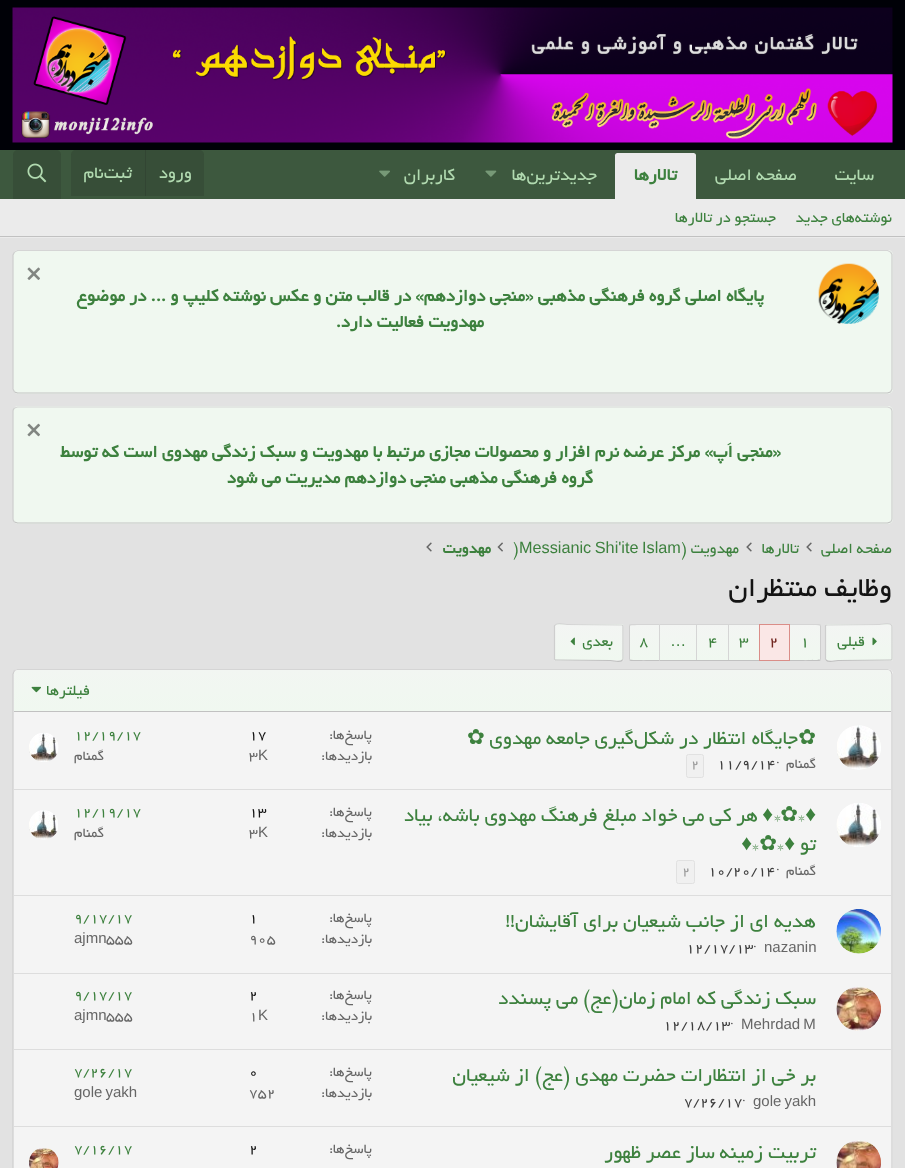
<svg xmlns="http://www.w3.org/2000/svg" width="905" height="1168">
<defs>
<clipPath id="clip1"><rect x="825" y="624" width="68" height="37" rx="2.5"/></clipPath>
<linearGradient id="g1" gradientUnits="userSpaceOnUse" x1="859" y1="625" x2="859" y2="590"><stop offset="0" stop-color="#f0f8f0"/><stop offset="1" stop-color="#f3f5f3"/></linearGradient>
<linearGradient id="g2" gradientUnits="userSpaceOnUse" x1="859" y1="660" x2="859" y2="625"><stop offset="0" stop-color="#f0f8f0"/><stop offset="1" stop-color="#f3f5f3"/></linearGradient>
<linearGradient id="g3" gradientUnits="userSpaceOnUse" x1="859" y1="695" x2="859" y2="660"><stop offset="0" stop-color="#f0f8f0"/><stop offset="1" stop-color="#f3f5f3"/></linearGradient>
<linearGradient id="g4" gradientUnits="userSpaceOnUse" x1="805" y1="660" x2="805" y2="625"><stop offset="0" stop-color="#f0f8f0"/><stop offset="1" stop-color="#f3f5f3"/></linearGradient>
<linearGradient id="g5" gradientUnits="userSpaceOnUse" x1="744" y1="660" x2="744" y2="625"><stop offset="0" stop-color="#f0f8f0"/><stop offset="1" stop-color="#f3f5f3"/></linearGradient>
<linearGradient id="g6" gradientUnits="userSpaceOnUse" x1="713" y1="660" x2="713" y2="625"><stop offset="0" stop-color="#f0f8f0"/><stop offset="1" stop-color="#f3f5f3"/></linearGradient>
<linearGradient id="g7" gradientUnits="userSpaceOnUse" x1="678" y1="660" x2="678" y2="625"><stop offset="0" stop-color="#f0f8f0"/><stop offset="1" stop-color="#f3f5f3"/></linearGradient>
<linearGradient id="g8" gradientUnits="userSpaceOnUse" x1="644" y1="660" x2="644" y2="625"><stop offset="0" stop-color="#f0f8f0"/><stop offset="1" stop-color="#f3f5f3"/></linearGradient>
<clipPath id="clip2"><rect x="554" y="624" width="70" height="37" rx="2.5"/></clipPath>
<linearGradient id="g9" gradientUnits="userSpaceOnUse" x1="589" y1="625" x2="589" y2="590"><stop offset="0" stop-color="#f0f8f0"/><stop offset="1" stop-color="#f3f5f3"/></linearGradient>
<linearGradient id="g10" gradientUnits="userSpaceOnUse" x1="589" y1="660" x2="589" y2="625"><stop offset="0" stop-color="#f0f8f0"/><stop offset="1" stop-color="#f3f5f3"/></linearGradient>
<linearGradient id="g11" gradientUnits="userSpaceOnUse" x1="589" y1="695" x2="589" y2="660"><stop offset="0" stop-color="#f0f8f0"/><stop offset="1" stop-color="#f3f5f3"/></linearGradient>
<linearGradient id="g12" gradientUnits="userSpaceOnUse" x1="453" y1="711" x2="453" y2="670"><stop offset="0" stop-color="#f0f8f0"/><stop offset="1" stop-color="#f2f6f2"/></linearGradient>
</defs>
<rect width="100%" height="100%" fill="#e2e2e2"/>
<rect width="905" height="150" fill="#000107"/>
<image x="12" y="7" width="881" height="136" href="media/1.png"/>
<rect y="150" width="905" height="49" fill="#3d583e"/>
<text x="874" y="180" style="font-family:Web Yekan;font-size:18.75px;direction:rtl;fill:#b1dab0">سایت</text>
<text x="797" y="180" style="font-family:Web Yekan;font-size:18.75px;direction:rtl;fill:#b1dab0">صفحه اصلی</text>
<path d="M617.5 153h76c1.5 0 2.5 1 2.5 2.5v43.5h-81v-43.5c0-1.5 1-2.5 2.5-2.5z" fill="#ebebeb"/>
<text x="677" y="180" style="font-family:Web Yekan;font-size:18.75px;font-weight:bold;direction:rtl;fill:#3d813e">تالارها</text>
<text x="597" y="180" style="font-family:Web Yekan;font-size:18.75px;direction:rtl;fill:#b1dab0">جدیدترین‌ها</text>
<image x="485" y="170" width="12" height="7" href="media/2.png"/>
<text x="455" y="180" style="font-family:Web Yekan;font-size:18.75px;direction:rtl;fill:#b1dab0">کاربران</text>
<image x="379" y="170" width="11" height="7" href="media/3.png"/>
<path d="M76 150h123c3 0 5 2 5 5v41h-133v-41c0-3 2-5 5-5z" fill="#374e38"/>
<text x="192" y="178" style="font-family:Web Yekan;font-size:18.75px;direction:rtl;fill:#b1dab0">ورود</text>
<rect x="145" y="150" width="1" height="46" fill="#324533"/>
<text x="132" y="178" style="font-family:Web Yekan;font-size:18.75px;direction:rtl;fill:#b1dab0">ثبت‌نام</text>
<path d="M18 150h38c3 0 5 2 5 5v44h-48v-44c0-3 2-5 5-5z" fill="#374e38"/>
<image x="27" y="163" width="20" height="20" href="media/4.png"/>
<rect y="199" width="905" height="39" fill="#ebebeb"/>
<rect y="236" width="905" height="1" fill="#c1c1c1"/>
<text x="892" y="222" style="font-family:Web Yekan;font-size:16.25px;direction:rtl;fill:#3d813e">نوشته‌های جدید</text>
<text x="776" y="222" style="font-family:Web Yekan;font-size:16.25px;direction:rtl;fill:#3d813e">جستجو در تالارها</text>
<rect x="13" y="250" width="880" height="144" rx="5" fill="#f0f8f0"/>
<path d="M14.5 252l3-1.5h870l3 1.5" fill="none" stroke="#d5d5d5" stroke-width="1.2"/>
<path d="M890.5 252l1.5 2.5v112v22.5l-1.5 3" fill="none" stroke="#cecece" stroke-width="1.2"/>
<path d="M890.5 392l-3 1h-870l-3-1" fill="none" stroke="#c1c1c1" stroke-width="1.2"/>
<path d="M14.5 392l-1.5-3v-111.5v-22.5l1.5-3" fill="none" stroke="#cecece" stroke-width="1.2"/>
<image x="818" y="263" width="61" height="61" href="media/5.png"/>
<image x="27" y="267" width="13" height="13" href="media/6.png"/>
<text x="764" y="301" style="font-family:Web Yekan;font-size:18.75px;font-weight:bold;direction:rtl;fill:#3d813e">پایگاه اصلی گروه فرهنگی مذهبی «منجی دوازدهم» در قالب متن و عکس نوشته کلیپ و ... در موضوع</text>
<text x="484" y="327" style="font-family:Web Yekan;font-size:18.75px;font-weight:bold;direction:rtl;fill:#3d813e">مهدویت فعالیت دارد.</text>
<rect x="13" y="406" width="880" height="118" rx="5" fill="#f0f8f0"/>
<path d="M14.5 408l3-1h870l3 1" fill="none" stroke="#d5d5d5" stroke-width="1.2"/>
<path d="M890.5 408c1 1 1.5 2 1.5 3v108c0 1-.5 2-1.5 3" fill="none" stroke="#cecece" stroke-width="1.2"/>
<path d="M890.5 522l-3 1h-870l-3-1" fill="none" stroke="#c1c1c1" stroke-width="1.2"/>
<path d="M14.5 522c-1-1-1.5-2-1.5-3v-108c0-1 .5-2 1.5-3" fill="none" stroke="#cecece" stroke-width="1.2"/>
<image x="27" y="423" width="13" height="14" href="media/7.png"/>
<text x="781" y="457" style="font-family:Web Yekan;font-size:18.75px;font-weight:bold;direction:rtl;fill:#3d813e">«منجی اَپ» مرکز عرضه نرم افزار و محصولات مجازی مرتبط با مهدویت و سبک زندگی مهدوی است که توسط</text>
<text x="593" y="483" style="font-family:Web Yekan;font-size:18.75px;font-weight:bold;direction:rtl;fill:#3d813e">گروه فرهنگی مذهبی منجی دوازدهم مدیریت می شود</text>
<text x="892" y="553" style="font-family:Web Yekan;font-size:16.25px;direction:rtl;fill:#3d813e">صفحه اصلی</text>
<image x="806" y="542" width="6" height="10" href="media/8.png"/>
<text x="799" y="553" style="font-family:Web Yekan;font-size:16.25px;direction:rtl;fill:#3d813e">تالارها</text>
<image x="746" y="542" width="6" height="10" href="media/8.png"/>
<text x="739" y="553" style="font-family:Web Yekan;font-size:16.25px;direction:rtl;fill:#3d813e">مهدویت (</text>
<text x="519" y="553" word-spacing="-1" style="font-family:Liberation Sans;font-size:16.25px;fill:#3d813e">Messianic Shi'ite Islam</text>
<text x="513" y="553" style="font-family:Web Yekan;font-size:16.25px;fill:#3d813e">)</text>
<image x="497" y="542" width="6" height="10" href="media/9.png"/>
<text x="491" y="553" style="font-family:Web Yekan;font-size:16.25px;font-weight:bold;direction:rtl;fill:#3d813e">مهدویت</text>
<image x="426" y="542" width="6" height="10" href="media/8.png"/>
<text x="892" y="596" style="font-family:Web Yekan;font-size:30px;direction:rtl;fill:#141414">وظایف منتظران</text>
<g clip-path="url(#clip1)">
<rect x="825" y="624" width="68" height="1" fill="url(#g1)"/>
<rect x="825" y="625" width="68" height="35" fill="url(#g2)"/>
<rect x="825" y="660" width="68" height="1" fill="url(#g3)"/>
</g>
<path d="M826 625l53.5-.5c4 0 9-2.5 12 .5" fill="none" stroke="#d5d5d5" stroke-width="1.2"/>
<path d="M891.5 625l.5 1v33l-.5 1" fill="none" stroke="#cecece" stroke-width="1.2"/>
<path d="M891.5 660l-53.5 .5c-4 0-9 2.5-12-.5" fill="none" stroke="#c1c1c1" stroke-width="1.2"/>
<path d="M826 660l-.5-1v-33l.5-1" fill="none" stroke="#cecece" stroke-width="1.2"/>
<image x="872" y="637" width="5" height="9" href="media/10.png"/>
<text x="865" y="646" style="font-family:Web Yekan;font-size:16.25px;direction:rtl;fill:#3d813e">قبلی</text>
<rect x="790" y="625" width="31" height="35" fill="url(#g4)"/>
<path d="M790 625c3 0 29-.5 29.5 .5l1-1l-1.5-.5h-29z" fill="#d5d5d5"/>
<path d="M820.5 624.5l.5 1.5v33l-.5 1.5l-1-1l.5-.5v-33l-.5-.5z" fill="#cecece"/>
<path d="M790 660v1h29l1.5-.5l-1-1c-.5 1-26.5 .5-29.5 .5z" fill="#c1c1c1"/>
<text x="800" y="646" style="font-family:Web Yekan;font-size:16.25px;fill:#3d813e">1</text>
<rect x="759.5" y="624.5" width="30" height="36" fill="#fae7e6" stroke="#da8d88"/>
<text x="769" y="646" style="font-family:Web Yekan;font-size:16.25px;fill:#712620">2</text>
<rect x="729" y="625" width="30" height="35" fill="url(#g5)"/>
<rect x="660" y="624" width="99" height="1" fill="#d5d5d5"/>
<rect x="729" y="660" width="30" height="1" fill="#c1c1c1"/>
<text x="739" y="646" style="font-family:Web Yekan;font-size:16.25px;fill:#3d813e">3</text>
<rect x="698" y="625" width="30" height="35" fill="url(#g6)"/>
<rect x="728" y="624" width="1" height="37" fill="#d5d5d5"/>
<rect x="698" y="660" width="31" height="1" fill="#c1c1c1"/>
<text x="708" y="646" style="font-family:Web Yekan;font-size:16.25px;fill:#3d813e">4</text>
<rect x="660" y="625" width="38" height="35" fill="url(#g7)"/>
<rect x="696" y="624" width="1" height="37" fill="#d5d5d5"/>
<rect x="660" y="660" width="38" height="1" fill="#c1c1c1"/>
<text x="670" y="646" style="font-family:Liberation Sans;font-size:16.25px;fill:#3d813e">…</text>
<rect x="629" y="625" width="30" height="35" fill="url(#g8)"/>
<path d="M631 624l-1.5 .5l1 1c.5-1 25-.5 28.5-.5l1-1z" fill="#d5d5d5"/>
<path d="M660 661v-37l-1 1v35z" fill="#d5d5d5"/>
<path d="M660 661h-29l-1.5-.5l1-1c.5 1 25 .5 28.5 .5z" fill="#c1c1c1"/>
<path d="M629.5 624.5l-.5 1.5v33l.5 1.5l1-1l-.5-.5v-33l.5-.5z" fill="#cecece"/>
<text x="639" y="646" style="font-family:Web Yekan;font-size:16.25px;fill:#3d813e">8</text>
<g clip-path="url(#clip2)">
<rect x="554" y="624" width="70" height="1" fill="url(#g9)"/>
<rect x="554" y="625" width="70" height="35" fill="url(#g10)"/>
<rect x="554" y="660" width="70" height="1" fill="url(#g11)"/>
</g>
<path d="M555 625c3-3 8-.5 12-.5l55.5 .5" fill="none" stroke="#d5d5d5" stroke-width="1.2"/>
<path d="M622.5 625l.5 1v33l-.5 1" fill="none" stroke="#cecece" stroke-width="1.2"/>
<path d="M622.5 660c-3 3-8 .5-12 .5l-55.5-.5" fill="none" stroke="#c1c1c1" stroke-width="1.2"/>
<path d="M555 660l-.5-1v-33l.5-1" fill="none" stroke="#cecece" stroke-width="1.2"/>
<text x="613" y="646" style="font-family:Web Yekan;font-size:16.25px;direction:rtl;fill:#3d813e">بعدی</text>
<image x="570" y="637" width="5" height="9" href="media/11.png"/>
<rect x="13" y="669" width="880" height="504" rx="5" fill="#f4f4f4"/>
<path d="M14.5 670.5l3-1h870l3 1" fill="none" stroke="#d5d5d5" stroke-width="1.2"/>
<path d="M890.5 670.5l1.5 3.5v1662l-1.5 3.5" fill="none" stroke="#cecece" stroke-width="1.2"/>
<path d="M14.5 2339.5l-1.5-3.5v-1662l1.5-3.5" fill="none" stroke="#cecece" stroke-width="1.2"/>
<path d="M18 670h869c2 0 4 2 4 4v37h-877v-37c0-2 2-4 4-4z" fill="url(#g12)"/>
<rect x="14" y="711" width="877" height="1" fill="#c1c1c1"/>
<text x="90" y="695" style="font-family:Web Yekan;font-size:16.25px;direction:rtl;fill:#3d813e">فیلترها</text>
<image x="31" y="686" width="10" height="7" href="media/12.png"/>
<image x="837" y="725" width="44" height="45" href="media/13.png"/>
<text x="816" y="744" style="font-family:DejaVu Sans;font-size:21.25px;direction:rtl;fill:#3d813e">✿</text>
<text x="798" y="744" style="font-family:Web Yekan;font-size:21.25px;direction:rtl;fill:#3d813e">جایگاه انتظار در شكل‌گیری جامعه مهدوی</text>
<text x="467" y="744" style="font-family:DejaVu Sans;font-size:21.25px;fill:#3d813e">✿</text>
<text x="816" y="768" style="font-family:Web Yekan;font-size:15px;direction:rtl;fill:#666">گمنام</text>
<text x="776" y="768" style="font-family:Web Yekan;font-size:15px;fill:#3d3d3d">·</text>
<text x="717" y="768" style="font-family:Web Yekan;font-size:15px;fill:#3d3d3d">11/9/14</text>
<rect x="686.5" y="754.5" width="17" height="23" rx="2" fill="#f0f0f0" stroke="#e1e1e1"/>
<text x="691" y="768" style="font-family:Web Yekan;font-size:14px;fill:#999">2</text>
<text x="372" y="739" style="font-family:Web Yekan;font-size:15px;direction:rtl;fill:#666">پاسخ‌ها</text>
<text x="329" y="739" style="font-family:Web Yekan;font-size:15px;fill:#666">:</text>
<text x="249" y="739" style="font-family:Web Yekan;font-size:15px;fill:#141414">17</text>
<text x="372" y="760" style="font-family:Web Yekan;font-size:15px;direction:rtl;fill:#666">بازدیدها</text>
<text x="321" y="760" style="font-family:Web Yekan;font-size:15px;fill:#666">:</text>
<text x="258" y="760" style="font-family:Liberation Sans;font-size:15px;fill:#666">K</text>
<text x="249" y="760" style="font-family:Web Yekan;font-size:15px;fill:#666">3</text>
<text x="74" y="739" style="font-family:Web Yekan;font-size:15px;fill:#3d813e">12/19/17</text>
<text x="104" y="760" style="font-family:Web Yekan;font-size:15px;direction:rtl;fill:#666">گمنام</text>
<image x="29" y="733" width="30" height="29" href="media/14.png"/>
<rect x="14" y="789" width="877" height="1" fill="#ddd"/>
<image x="836" y="803" width="45" height="44" href="media/15.png"/>
<text x="816" y="821" style="font-family:Liberation Sans;font-size:21.25px;direction:rtl;fill:#3d813e">♦</text>
<text x="805" y="821" style="font-family:Web Yekan;font-size:21.25px;direction:rtl;fill:#3d813e">*</text>
<text x="798" y="821" style="font-family:DejaVu Sans;font-size:21.25px;direction:rtl;fill:#3d813e">✿</text>
<text x="781" y="821" style="font-family:Web Yekan;font-size:21.25px;direction:rtl;fill:#3d813e">*</text>
<text x="773" y="821" style="font-family:Liberation Sans;font-size:21.25px;direction:rtl;fill:#3d813e">♦</text>
<text x="758" y="821" style="font-family:Web Yekan;font-size:21.25px;direction:rtl;fill:#3d813e">هر کی می خواد مبلغ فرهنگ مهدوی باشه، بیاد</text>
<text x="816" y="850" style="font-family:Web Yekan;font-size:21.25px;direction:rtl;fill:#3d813e">تو</text>
<text x="795" y="850" style="font-family:Liberation Sans;font-size:21.25px;direction:rtl;fill:#3d813e">♦</text>
<text x="784" y="850" style="font-family:Web Yekan;font-size:21.25px;direction:rtl;fill:#3d813e">*</text>
<text x="777" y="850" style="font-family:DejaVu Sans;font-size:21.25px;direction:rtl;fill:#3d813e">✿</text>
<text x="759" y="850" style="font-family:Web Yekan;font-size:21.25px;direction:rtl;fill:#3d813e">*</text>
<text x="752" y="850" style="font-family:Liberation Sans;font-size:21.25px;direction:rtl;fill:#3d813e">♦</text>
<text x="816" y="875" style="font-family:Web Yekan;font-size:15px;direction:rtl;fill:#666">گمنام</text>
<text x="776" y="875" style="font-family:Web Yekan;font-size:15px;fill:#3d3d3d">·</text>
<text x="708" y="875" style="font-family:Web Yekan;font-size:15px;fill:#3d3d3d">10/20/14</text>
<rect x="676.5" y="860.5" width="18" height="23" rx="2" fill="#f0f0f0" stroke="#e1e1e1"/>
<text x="682" y="875" style="font-family:Web Yekan;font-size:14px;fill:#999">2</text>
<text x="372" y="816" style="font-family:Web Yekan;font-size:15px;direction:rtl;fill:#666">پاسخ‌ها</text>
<text x="329" y="816" style="font-family:Web Yekan;font-size:15px;fill:#666">:</text>
<text x="249" y="816" style="font-family:Web Yekan;font-size:15px;fill:#141414">13</text>
<text x="372" y="837" style="font-family:Web Yekan;font-size:15px;direction:rtl;fill:#666">بازدیدها</text>
<text x="321" y="837" style="font-family:Web Yekan;font-size:15px;fill:#666">:</text>
<text x="258" y="837" style="font-family:Liberation Sans;font-size:15px;fill:#666">K</text>
<text x="249" y="837" style="font-family:Web Yekan;font-size:15px;fill:#666">3</text>
<text x="74" y="816" style="font-family:Web Yekan;font-size:15px;fill:#3d813e">12/19/17</text>
<text x="104" y="837" style="font-family:Web Yekan;font-size:15px;direction:rtl;fill:#666">گمنام</text>
<image x="29" y="810" width="29" height="30" href="media/16.png"/>
<rect x="14" y="895" width="877" height="1" fill="#ddd"/>
<image x="836" y="909" width="45" height="45" href="media/17.png"/>
<text x="816" y="927" style="font-family:Web Yekan;font-size:21.25px;direction:rtl;fill:#3d813e">هدیه ای از جانب شیعیان برای آقایشان!!</text>
<text x="764" y="952" style="font-family:Liberation Sans;font-size:15px;fill:#666">nazanin</text>
<text x="753" y="952" style="font-family:Web Yekan;font-size:15px;fill:#3d3d3d">·</text>
<text x="686" y="952" style="font-family:Web Yekan;font-size:15px;fill:#3d3d3d">12/17/13</text>
<text x="372" y="922" style="font-family:Web Yekan;font-size:15px;direction:rtl;fill:#666">پاسخ‌ها</text>
<text x="329" y="922" style="font-family:Web Yekan;font-size:15px;fill:#666">:</text>
<text x="249" y="922" style="font-family:Web Yekan;font-size:15px;fill:#141414">1</text>
<text x="372" y="943" style="font-family:Web Yekan;font-size:15px;direction:rtl;fill:#666">بازدیدها</text>
<text x="321" y="943" style="font-family:Web Yekan;font-size:15px;fill:#666">:</text>
<text x="249" y="943" style="font-family:Web Yekan;font-size:15px;fill:#666">905</text>
<text x="74" y="922" style="font-family:Web Yekan;font-size:15px;fill:#3d813e">9/17/17</text>
<text x="106" y="943" style="font-family:Web Yekan;font-size:15px;fill:#666">555</text>
<text x="74" y="943" style="font-family:Liberation Sans;font-size:15px;fill:#666">ajmn</text>
<rect x="14" y="973" width="877" height="1" fill="#ddd"/>
<image x="836" y="986" width="45" height="45" href="media/18.png"/>
<text x="816" y="1004" style="font-family:Web Yekan;font-size:21.25px;direction:rtl;fill:#3d813e">سبک زندگی که امام زمان(عج) می پسندد</text>
<text x="741" y="1029" word-spacing="-1" style="font-family:Liberation Sans;font-size:15px;fill:#666">Mehrdad M</text>
<text x="730" y="1029" style="font-family:Web Yekan;font-size:15px;fill:#3d3d3d">·</text>
<text x="663" y="1029" style="font-family:Web Yekan;font-size:15px;fill:#3d3d3d">12/18/13</text>
<text x="372" y="999" style="font-family:Web Yekan;font-size:15px;direction:rtl;fill:#666">پاسخ‌ها</text>
<text x="329" y="999" style="font-family:Web Yekan;font-size:15px;fill:#666">:</text>
<text x="249" y="999" style="font-family:Web Yekan;font-size:15px;fill:#141414">2</text>
<text x="372" y="1020" style="font-family:Web Yekan;font-size:15px;direction:rtl;fill:#666">بازدیدها</text>
<text x="321" y="1020" style="font-family:Web Yekan;font-size:15px;fill:#666">:</text>
<text x="258" y="1020" style="font-family:Liberation Sans;font-size:15px;fill:#666">K</text>
<text x="249" y="1020" style="font-family:Web Yekan;font-size:15px;fill:#666">1</text>
<text x="74" y="999" style="font-family:Web Yekan;font-size:15px;fill:#3d813e">9/17/17</text>
<text x="106" y="1020" style="font-family:Web Yekan;font-size:15px;fill:#666">555</text>
<text x="74" y="1020" style="font-family:Liberation Sans;font-size:15px;fill:#666">ajmn</text>
<rect x="14" y="1049" width="877" height="1" fill="#ddd"/>
<text x="816" y="1081" style="font-family:Web Yekan;font-size:21.25px;direction:rtl;fill:#3d813e">بر خی از انتظارات حضرت مهدی (عج) از شیعیان</text>
<text x="753" y="1106" word-spacing="-1" style="font-family:Liberation Sans;font-size:15px;fill:#666">gole yakh</text>
<text x="742" y="1106" style="font-family:Web Yekan;font-size:15px;fill:#3d3d3d">·</text>
<text x="684" y="1106" style="font-family:Web Yekan;font-size:15px;fill:#3d3d3d">7/26/17</text>
<text x="372" y="1076" style="font-family:Web Yekan;font-size:15px;direction:rtl;fill:#666">پاسخ‌ها</text>
<text x="329" y="1076" style="font-family:Web Yekan;font-size:15px;fill:#666">:</text>
<text x="249" y="1076" style="font-family:Web Yekan;font-size:15px;fill:#141414">0</text>
<text x="372" y="1097" style="font-family:Web Yekan;font-size:15px;direction:rtl;fill:#666">بازدیدها</text>
<text x="321" y="1097" style="font-family:Web Yekan;font-size:15px;fill:#666">:</text>
<text x="249" y="1097" style="font-family:Web Yekan;font-size:15px;fill:#666">752</text>
<text x="74" y="1076" style="font-family:Web Yekan;font-size:15px;fill:#3d813e">7/26/17</text>
<text x="74" y="1097" word-spacing="-1" style="font-family:Liberation Sans;font-size:15px;fill:#666">gole yakh</text>
<rect x="14" y="1126" width="877" height="1" fill="#ddd"/>
<image x="836" y="1140" width="45" height="28" href="media/19.png"/>
<text x="816" y="1158" style="font-family:Web Yekan;font-size:21.25px;direction:rtl;fill:#3d813e">تربیت زمینه‌ ساز عصر ظهور</text>
<text x="372" y="1153" style="font-family:Web Yekan;font-size:15px;direction:rtl;fill:#666">پاسخ‌ها</text>
<text x="329" y="1153" style="font-family:Web Yekan;font-size:15px;fill:#666">:</text>
<text x="249" y="1153" style="font-family:Web Yekan;font-size:15px;fill:#141414">2</text>
<text x="74" y="1153" style="font-family:Web Yekan;font-size:15px;fill:#3d813e">7/16/17</text>
<image x="29" y="1148" width="30" height="20" href="media/20.png"/>
</svg>
